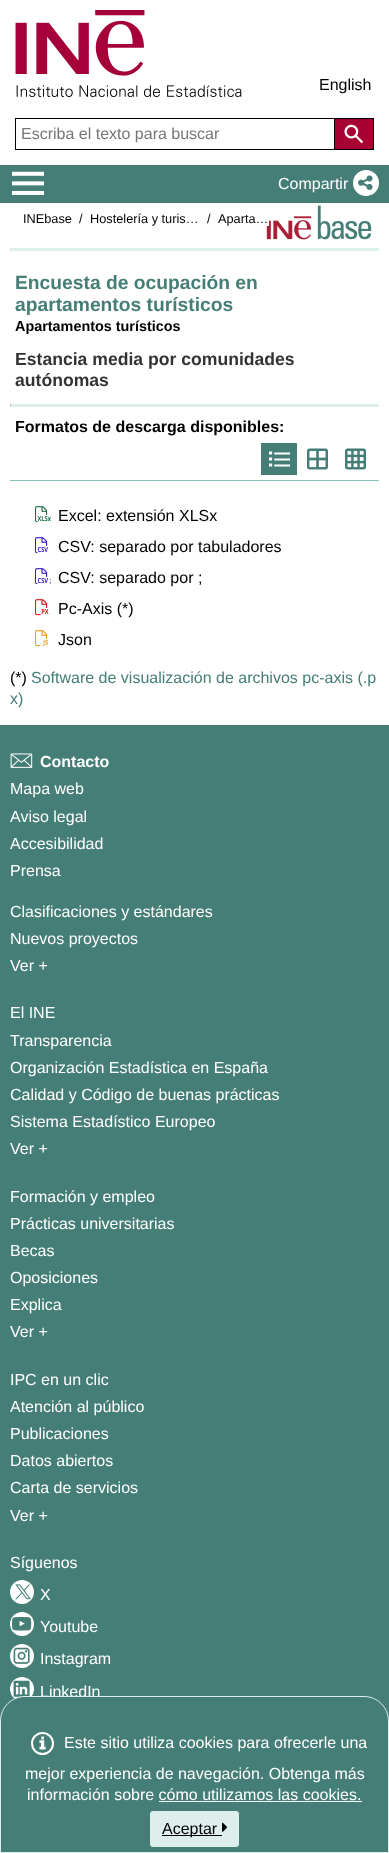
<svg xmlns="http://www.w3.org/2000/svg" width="389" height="1853">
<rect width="100%" height="100%" fill="#fff"/>
<image x="15" y="10" width="227" height="87" href="media/1.png"/>
<text x="319" y="90" style="font-family:Liberation Sans;font-size:16px;fill:#000">English</text>
<rect x="15.5" y="118.5" width="323" height="31" fill="none" stroke="#000"/>
<text x="21" y="139" style="font-family:Liberation Sans;font-size:16px;fill:#767676">Escriba el texto para buscar</text>
<rect x="334.5" y="118.5" width="39" height="31" fill="#a70332" stroke="#000"/>
<image x="344" y="124" width="20" height="20" href="media/2.png"/>
<rect y="165" width="389" height="38" fill="#457e76"/>
<image x="12" y="171" width="32" height="24" href="media/3.png"/>
<text x="278" y="189" style="font-family:Liberation Sans;font-size:16px;fill:#fff">Compartir</text>
<circle cx="366" cy="183" r="13" fill="#fff"/>
<image x="358" y="175" width="15" height="15" href="media/4.png"/>
<rect x="10" y="248" width="369" height="3" fill="#ddeeec"/>
<text x="23" y="223" style="font-family:Liberation Sans;font-size:12.75px;fill:#000">INEbase</text>
<text x="79" y="223" style="font-family:Liberation Sans;font-size:12.75px;fill:#000">/</text>
<text x="90" y="223" style="font-family:Liberation Sans;font-size:12.75px;fill:#000">Hostelería y turis…</text>
<text x="207" y="223" style="font-family:Liberation Sans;font-size:12.75px;fill:#000">/</text>
<image x="266" y="205" width="106" height="35" href="media/5.png"/>
<rect x="266" y="220" width="3" height="6" fill="#fff"/>
<text x="218" y="223" style="font-family:Liberation Sans;font-size:12.75px;fill:#000">Aparta…</text>
<text x="15" y="289" style="font-family:Liberation Sans;font-size:19.25px;font-weight:bold;fill:#457e76">Encuesta de ocupación en</text>
<text x="15" y="311" style="font-family:Liberation Sans;font-size:19.25px;font-weight:bold;fill:#457e76">apartamentos turísticos</text>
<text x="15" y="331" style="font-family:Liberation Sans;font-size:14.4px;font-weight:bold;fill:#000">Apartamentos turísticos</text>
<text x="15" y="365" style="font-family:Liberation Sans;font-size:17.6px;font-weight:bold;fill:#333">Estancia media por comunidades</text>
<text x="15" y="386" style="font-family:Liberation Sans;font-size:17.6px;font-weight:bold;fill:#333">autónomas</text>
<path d="M379 404v3l-1-3z" fill="#eee"/>
<path d="M379 407h-369l1-3h367z" fill="#ddeeea"/>
<path d="M10 407v-3h1z" fill="#9f9f9f"/>
<text x="15" y="432" style="font-family:Liberation Sans;font-size:16px;font-weight:bold;fill:#000">Formatos de descarga disponibles:</text>
<rect x="10" y="480" width="369" height="1" fill="#89beba"/>
<rect x="261" y="443" width="36" height="32" fill="#457e76"/>
<image x="269" y="451" width="21" height="16" href="media/6.png"/>
<image x="307" y="448" width="21" height="22" href="media/7.png"/>
<image x="345" y="448" width="21" height="22" href="media/8.png"/>
<image x="35" y="506" width="16" height="17" href="media/9.png"/>
<text x="58" y="521" style="font-family:Liberation Sans;font-size:16px;fill:#000">Excel: extensión XLSx</text>
<image x="35" y="537" width="13" height="17" href="media/10.png"/>
<text x="58" y="552" style="font-family:Liberation Sans;font-size:16px;fill:#000">CSV: separado por tabuladores</text>
<image x="35" y="568" width="16" height="17" href="media/11.png"/>
<text x="58" y="583" style="font-family:Liberation Sans;font-size:16px;fill:#000">CSV: separado por ;</text>
<image x="35" y="599" width="14" height="17" href="media/12.png"/>
<text x="58" y="614" style="font-family:Liberation Sans;font-size:16px;fill:#000">Pc-Axis (*)</text>
<image x="35" y="630" width="13" height="17" href="media/13.png"/>
<text x="58" y="645" style="font-family:Liberation Sans;font-size:16px;fill:#000">Json</text>
<text x="10" y="683" style="font-family:Liberation Sans;font-size:16px;fill:#000">(*)</text>
<text x="31" y="683" style="font-family:Liberation Sans;font-size:16px;fill:#457e76">Software de visualización de archivos pc-axis (.p</text>
<text x="10" y="704" style="font-family:Liberation Sans;font-size:16px;fill:#457e76">x)</text>
<rect y="725" width="389" height="996" fill="#457e76"/>
<image x="10" y="753" width="23" height="15" href="media/14.png"/>
<text x="40" y="767" style="font-family:Liberation Sans;font-size:16px;font-weight:bold;fill:#fff">Contacto</text>
<text x="10" y="794" style="font-family:Liberation Sans;font-size:16px;fill:#fff">Mapa web</text>
<text x="10" y="822" style="font-family:Liberation Sans;font-size:16px;fill:#fff">Aviso legal</text>
<text x="10" y="849" style="font-family:Liberation Sans;font-size:16px;fill:#fff">Accesibilidad</text>
<text x="10" y="876" style="font-family:Liberation Sans;font-size:16px;fill:#fff">Prensa</text>
<text x="10" y="917" style="font-family:Liberation Sans;font-size:16px;fill:#fff">Clasificaciones y estándares</text>
<text x="10" y="944" style="font-family:Liberation Sans;font-size:16px;fill:#fff">Nuevos proyectos</text>
<text x="10" y="971" style="font-family:Liberation Sans;font-size:16px;fill:#fff">Ver +</text>
<text x="10" y="1018" style="font-family:Liberation Sans;font-size:16px;fill:#fff">El INE</text>
<text x="10" y="1046" style="font-family:Liberation Sans;font-size:16px;fill:#fff">Transparencia</text>
<text x="10" y="1073" style="font-family:Liberation Sans;font-size:16px;fill:#fff">Organización Estadística en España</text>
<text x="10" y="1100" style="font-family:Liberation Sans;font-size:16px;fill:#fff">Calidad y Código de buenas prácticas</text>
<text x="10" y="1127" style="font-family:Liberation Sans;font-size:16px;fill:#fff">Sistema Estadístico Europeo</text>
<text x="10" y="1154" style="font-family:Liberation Sans;font-size:16px;fill:#fff">Ver +</text>
<text x="10" y="1202" style="font-family:Liberation Sans;font-size:16px;fill:#fff">Formación y empleo</text>
<text x="10" y="1229" style="font-family:Liberation Sans;font-size:16px;fill:#fff">Prácticas universitarias</text>
<text x="10" y="1256" style="font-family:Liberation Sans;font-size:16px;fill:#fff">Becas</text>
<text x="10" y="1283" style="font-family:Liberation Sans;font-size:16px;fill:#fff">Oposiciones</text>
<text x="10" y="1310" style="font-family:Liberation Sans;font-size:16px;fill:#fff">Explica</text>
<text x="10" y="1337" style="font-family:Liberation Sans;font-size:16px;fill:#fff">Ver +</text>
<text x="10" y="1385" style="font-family:Liberation Sans;font-size:16px;fill:#fff">IPC en un clic</text>
<text x="10" y="1412" style="font-family:Liberation Sans;font-size:16px;fill:#fff">Atención al público</text>
<text x="10" y="1439" style="font-family:Liberation Sans;font-size:16px;fill:#fff">Publicaciones</text>
<text x="10" y="1466" style="font-family:Liberation Sans;font-size:16px;fill:#fff">Datos abiertos</text>
<text x="10" y="1493" style="font-family:Liberation Sans;font-size:16px;fill:#fff">Carta de servicios</text>
<text x="10" y="1521" style="font-family:Liberation Sans;font-size:16px;fill:#fff">Ver +</text>
<text x="10" y="1568" style="font-family:Liberation Sans;font-size:16px;fill:#fff">Síguenos</text>
<circle cx="22" cy="1592" r="12" fill="#fff"/>
<image x="15" y="1584" width="16" height="16" href="media/15.png"/>
<text x="40" y="1600" style="font-family:Liberation Sans;font-size:16px;fill:#fff">X</text>
<circle cx="22" cy="1624" r="12" fill="#fff"/>
<image x="12" y="1617" width="20" height="14" href="media/16.png"/>
<text x="40" y="1632" style="font-family:Liberation Sans;font-size:16px;fill:#fff">Youtube</text>
<circle cx="22" cy="1656" r="12" fill="#fff"/>
<image x="13" y="1647" width="17" height="17" href="media/17.png"/>
<text x="40" y="1664" style="font-family:Liberation Sans;font-size:16px;fill:#fff">Instagram</text>
<circle cx="22" cy="1689" r="12" fill="#fff"/>
<image x="13" y="1680" width="17" height="17" href="media/18.png"/>
<text x="40" y="1697" style="font-family:Liberation Sans;font-size:16px;fill:#fff">LinkedIn</text>
<path d="M25 1696.5h339c13.5 0 24.5 11 24.5 24.5v131.5h-388v-131.5c0-13.5 11-24.5 24.5-24.5z" fill="#457e76" stroke="#ddeeec"/>
<circle cx="42.5" cy="1743.5" r="10.5" fill="none" stroke="#fff" stroke-width="2"/>
<image x="39" y="1736" width="7" height="14" href="media/19.png"/>
<text x="64" y="1748" style="font-family:Liberation Sans;font-size:16px;fill:#fff">Este sitio utiliza cookies para ofrecerle una</text>
<text x="25" y="1779" style="font-family:Liberation Sans;font-size:16px;fill:#fff">mejor experiencia de navegación. Obtenga más</text>
<text x="27" y="1800" style="font-family:Liberation Sans;font-size:16px;fill:#fff">información sobre cómo utilizamos las cookies.</text>
<rect x="159" y="1801" width="203" height="1" fill="#fff"/>
<rect x="149.5" y="1810.5" width="90" height="37" rx="3.5" fill="#ddeeec" stroke="#457e76"/>
<rect x="162" y="1835" width="60" height="1" fill="#000"/>
<text x="162" y="1834" style="font-family:Liberation Sans;font-size:16px;fill:#000">Aceptar</text>
<image x="222" y="1822" width="6" height="10" href="media/20.png"/>
</svg>
